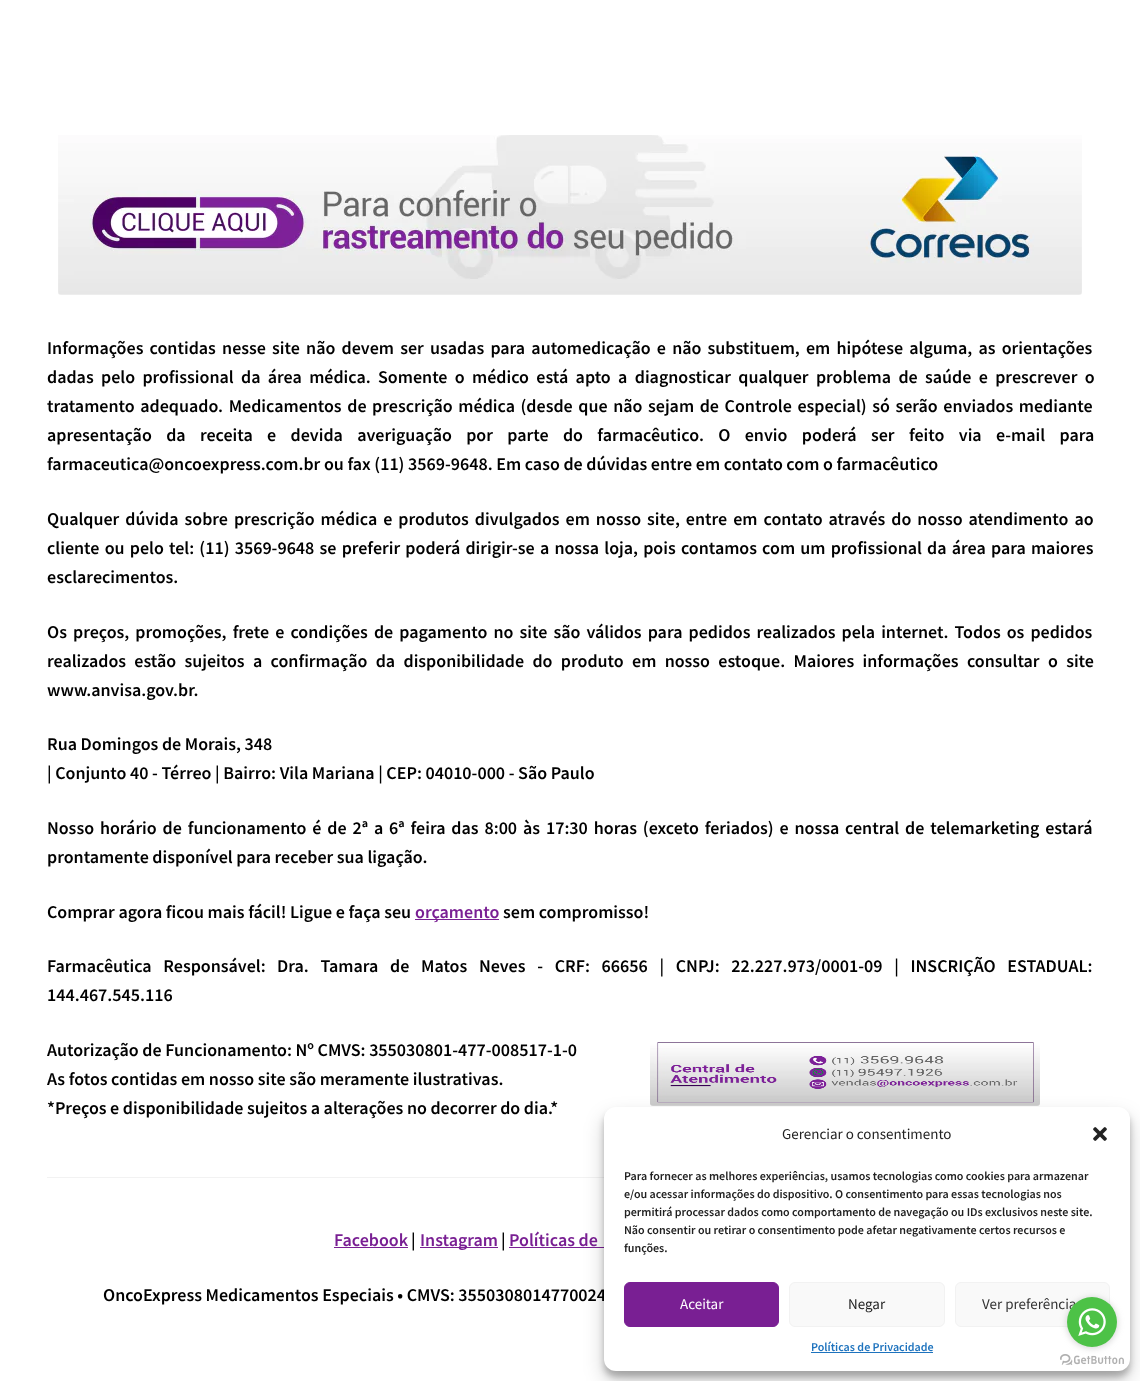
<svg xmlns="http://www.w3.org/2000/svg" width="1140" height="1381">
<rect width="100%" height="100%" fill="#fff"/>
<rect x="47" y="1177" width="557" height="1" fill="#f2f2f2"/>
<image x="58" y="135" width="1024" height="160" href="media/1.png"/>
<text x="47" y="354" word-spacing="2.6" style="font-family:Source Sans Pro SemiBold;font-size:18px;font-weight:600;fill:#000">Informações contidas nesse site não devem ser usadas para automedicação e não substituem, em hipótese alguma, as orientações</text>
<text x="47" y="383" word-spacing="3.75" style="font-family:Source Sans Pro SemiBold;font-size:18px;font-weight:600;fill:#000">dadas pelo profissional da área médica. Somente o médico está apto a diagnosticar qualquer problema de saúde e prescrever o</text>
<text x="47" y="412" word-spacing="2" style="font-family:Source Sans Pro SemiBold;font-size:18px;font-weight:600;fill:#000">tratamento adequado. Medicamentos de prescrição médica (desde que não sejam de Controle especial) só serão enviados mediante</text>
<text x="47" y="441" word-spacing="10.75" style="font-family:Source Sans Pro SemiBold;font-size:18px;font-weight:600;fill:#000">apresentação da receita e devida averiguação por parte do farmacêutico. O envio poderá ser feito via e-mail para</text>
<text x="47" y="470" style="font-family:Source Sans Pro SemiBold;font-size:18px;font-weight:600;fill:#000">farmaceutica@oncoexpress.com.br ou fax (11) 3569-9648. Em caso de dúvidas entre em contato com o farmacêutico</text>
<text x="47" y="525" word-spacing="2.4" style="font-family:Source Sans Pro SemiBold;font-size:18px;font-weight:600;fill:#000">Qualquer dúvida sobre prescrição médica e produtos divulgados em nosso site, entre em contato através do nosso atendimento ao</text>
<text x="47" y="554" word-spacing="1.6" style="font-family:Source Sans Pro SemiBold;font-size:18px;font-weight:600;fill:#000">cliente ou pelo tel: (11) 3569-9648 se preferir poderá dirigir-se a nossa loja, pois contamos com um profissional da área para maiores</text>
<text x="47" y="583" style="font-family:Source Sans Pro SemiBold;font-size:18px;font-weight:600;fill:#000">esclarecimentos.</text>
<text x="47" y="638" word-spacing="2.5" style="font-family:Source Sans Pro SemiBold;font-size:18px;font-weight:600;fill:#000">Os preços, promoções, frete e condições de pagamento no site são válidos para pedidos realizados pela internet. Todos os pedidos</text>
<text x="47" y="667" word-spacing="4.75" style="font-family:Source Sans Pro SemiBold;font-size:18px;font-weight:600;fill:#000">realizados estão sujeitos a confirmação da disponibilidade do produto em nosso estoque. Maiores informações consultar o site</text>
<text x="47" y="696" style="font-family:Source Sans Pro SemiBold;font-size:18px;font-weight:600;fill:#000">www.anvisa.gov.br.</text>
<text x="47" y="750" style="font-family:Source Sans Pro SemiBold;font-size:18px;font-weight:600;fill:#000">Rua Domingos de Morais, 348</text>
<text x="47" y="779" style="font-family:Source Sans Pro SemiBold;font-size:18px;font-weight:600;fill:#000">| Conjunto 40 - Térreo | Bairro: Vila Mariana | CEP: 04010-000 - São Paulo</text>
<text x="47" y="834" word-spacing="2.3" style="font-family:Source Sans Pro SemiBold;font-size:18px;font-weight:600;fill:#000">Nosso horário de funcionamento é de 2ª a 6ª feira das 8:00 às 17:30 horas (exceto feriados) e nossa central de telemarketing estará</text>
<text x="47" y="863" style="font-family:Source Sans Pro SemiBold;font-size:18px;font-weight:600;fill:#000">prontamente disponível para receber sua ligação.</text>
<text x="47" y="918" style="font-family:Source Sans Pro SemiBold;font-size:18px;font-weight:600;fill:#000">Comprar agora ficou mais fácil! Ligue e faça seu</text>
<rect x="415" y="919" width="84" height="1" fill="#791f93"/>
<text x="415" y="918" style="font-family:Source Sans Pro SemiBold;font-size:18px;font-weight:600;fill:#791f93">orçamento</text>
<text x="503" y="918" style="font-family:Source Sans Pro SemiBold;font-size:18px;font-weight:600;fill:#000">sem compromisso!</text>
<text x="47" y="972" word-spacing="8.1" style="font-family:Source Sans Pro SemiBold;font-size:18px;font-weight:600;fill:#000">Farmacêutica Responsável:</text>
<text x="277" y="972" word-spacing="8.1" style="font-family:Source Sans Pro SemiBold;font-size:18px;font-weight:600;fill:#000">Dra. Tamara de Matos Neves - CRF: 66656 | CNPJ: 22.227.973/0001-09 | INSCRIÇÃO ESTADUAL:</text>
<text x="47" y="1001" style="font-family:Source Sans Pro SemiBold;font-size:18px;font-weight:600;fill:#000">144.467.545.116</text>
<text x="47" y="1056" style="font-family:Source Sans Pro SemiBold;font-size:18px;font-weight:600;fill:#000">Autorização de Funcionamento: Nº CMVS: 355030801-477-008517-1-0</text>
<text x="47" y="1085" style="font-family:Source Sans Pro SemiBold;font-size:18px;font-weight:600;fill:#000">As fotos contidas em nosso site são meramente ilustrativas.</text>
<text x="47" y="1114" style="font-family:Source Sans Pro SemiBold;font-size:18px;font-weight:600;fill:#000">*Preços e disponibilidade sujeitos a alterações no decorrer do dia.*</text>
<image x="650" y="1042" width="390" height="64" href="media/2.png"/>
<text x="334" y="1246" style="font-family:Source Sans Pro SemiBold;font-size:18px;font-weight:600;fill:#791f93">Facebook</text>
<rect x="334" y="1247" width="74" height="1" fill="#791f93"/>
<text x="411" y="1246" style="font-family:Source Sans Pro SemiBold;font-size:18px;font-weight:600;fill:#000">|</text>
<rect x="420" y="1247" width="78" height="1" fill="#791f93"/>
<text x="420" y="1246" style="font-family:Source Sans Pro SemiBold;font-size:18px;font-weight:600;fill:#791f93">Instagram</text>
<text x="501" y="1246" style="font-family:Source Sans Pro SemiBold;font-size:18px;font-weight:600;fill:#000">|</text>
<text x="509" y="1246" style="font-family:Source Sans Pro SemiBold;font-size:18px;font-weight:600;fill:#791f93">Políticas de</text>
<rect x="509" y="1247" width="95" height="1" fill="#791f93"/>
<text x="103" y="1301" style="font-family:Source Sans Pro SemiBold;font-size:18px;font-weight:600;fill:#000">OncoExpress Medicamentos Especiais • CMVS: 3550308014770024</text>
<rect x="604" y="1113" width="526" height="264" rx="12" fill="#0000003b" filter="blur(3px)"/>
<rect x="604" y="1117" width="526" height="264" rx="12" fill="#00000030" filter="blur(10px)"/>
<rect x="604" y="1107" width="526" height="264" rx="12" fill="#fff"/>
<text x="782" y="1139" style="font-family:Source Sans Pro;font-size:15px;fill:#222">Gerenciar o consentimento</text>
<image x="1093" y="1127" width="14" height="14" href="media/3.png"/>
<text x="624" y="1180" style="font-family:Source Sans Pro SemiBold;font-size:12px;font-weight:600;fill:#222">Para fornecer as melhores experiências, usamos tecnologias como cookies para armazenar</text>
<text x="624" y="1198" style="font-family:Source Sans Pro SemiBold;font-size:12px;font-weight:600;fill:#222">e/ou acessar informações do dispositivo. O consentimento para essas tecnologias nos</text>
<text x="624" y="1216" style="font-family:Source Sans Pro SemiBold;font-size:12px;font-weight:600;fill:#222">permitirá processar dados como comportamento de navegação ou IDs exclusivos neste site.</text>
<text x="624" y="1234" style="font-family:Source Sans Pro SemiBold;font-size:12px;font-weight:600;fill:#222">Não consentir ou retirar o consentimento pode afetar negativamente certos recursos e</text>
<text x="624" y="1252" style="font-family:Source Sans Pro SemiBold;font-size:12px;font-weight:600;fill:#222">funções.</text>
<rect x="624.5" y="1282.5" width="154" height="44" rx="5.5" fill="#791f93" stroke="#791f93"/>
<text x="680" y="1309" style="font-family:Source Sans Pro;font-size:15px;fill:#fff">Aceitar</text>
<rect x="789.5" y="1282.5" width="155" height="44" rx="5.5" fill="#f9f9f9" stroke="#f2f2f2"/>
<text x="848" y="1309" style="font-family:Source Sans Pro;font-size:15px;fill:#222">Negar</text>
<rect x="955.5" y="1282.5" width="154" height="44" rx="5.5" fill="#f9f9f9" stroke="#f2f2f2"/>
<text x="982" y="1309" style="font-family:Source Sans Pro;font-size:15px;fill:#333">Ver preferência</text>
<text x="811" y="1351" style="font-family:Source Sans Pro SemiBold;font-size:12px;font-weight:600;fill:#1e73be">Políticas de Privacidade</text>
<rect x="811" y="1352" width="122" height="1" fill="#1e73be"/>
<image x="1060" y="1354" width="64" height="11" href="media/5.png"/>
<rect x="1067" y="1298" width="50" height="50" rx="25" fill="#88888866" filter="blur(3.5px)"/>
<circle cx="1092" cy="1322" r="25" fill="#4dc247"/>
<image x="1078" y="1308" width="28" height="28" href="media/4.png"/>
</svg>
